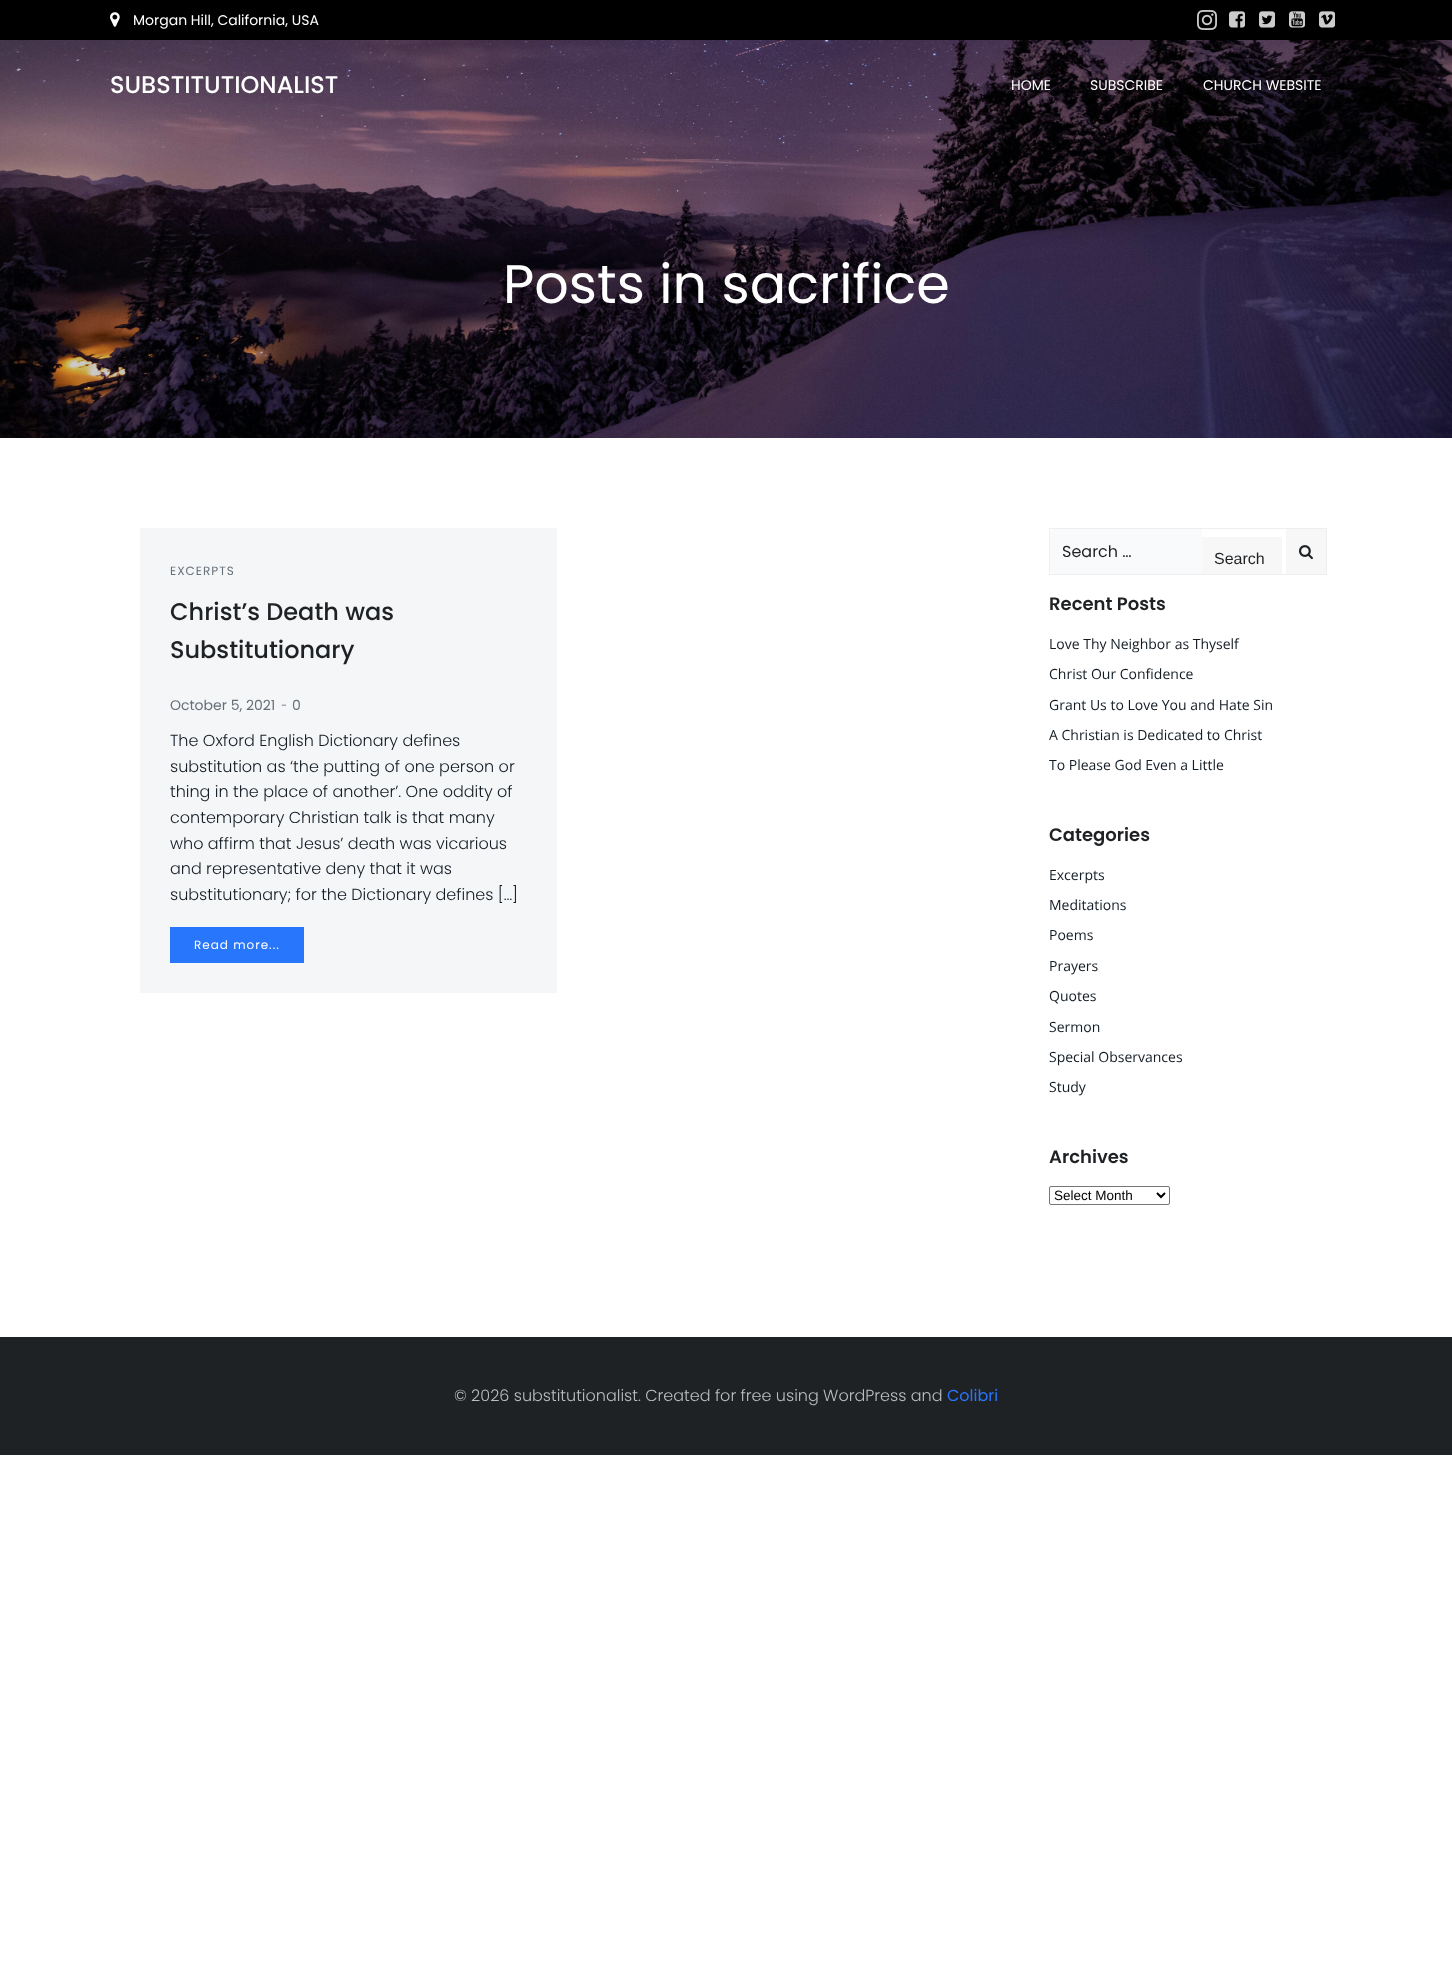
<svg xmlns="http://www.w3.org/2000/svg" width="1452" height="1973">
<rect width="100%" height="100%" fill="#fff"/>
<rect width="1452" height="40" fill="#000"/>
<image x="110" y="12" width="10" height="15" href="media/1.png"/>
<text x="133" y="25" style="font-family:Poppins;font-size:14px;fill:#fff">Morgan Hill, California, USA</text>
<image x="1197" y="10" width="20" height="20" href="media/2.png"/>
<image x="1229" y="11" width="16" height="17" href="media/3.png"/>
<image x="1259" y="11" width="16" height="17" href="media/4.png"/>
<image x="1289" y="11" width="16" height="17" href="media/5.png"/>
<image x="1319" y="11" width="16" height="17" href="media/6.png"/>
<image x="0" y="40" width="1452" height="398" href="media/7.png"/>
<text x="110" y="93" style="font-family:Poppins;font-size:24px;font-weight:500;fill:#fff">SUBSTITUTIONALIST</text>
<text x="1011" y="90" style="font-family:Poppins;font-size:14px;fill:#fff">HOME</text>
<text x="1090" y="90" style="font-family:Poppins;font-size:14px;fill:#fff">SUBSCRIBE</text>
<text x="1203" y="90" style="font-family:Poppins;font-size:14px;fill:#fff">CHURCH WEBSITE</text>
<text x="503" y="303" style="font-family:Poppins;font-size:54px;fill:#fff">Posts in sacrifice</text>
<rect x="140" y="528" width="417" height="465" fill="#f5f6f7"/>
<text x="170" y="575" style="font-family:Poppins;font-size:12px;letter-spacing:1px;fill:#66707a">EXCERPTS</text>
<text x="170" y="620" style="font-family:Poppins;font-size:24px;font-weight:500;fill:#1f2225">Christ’s Death was</text>
<text x="170" y="658" style="font-family:Poppins;font-size:24px;font-weight:500;fill:#1f2225">Substitutionary</text>
<text x="170" y="710" style="font-family:Poppins;font-size:14px;fill:#66707a">October 5, 2021</text>
<text x="281" y="710" style="font-family:Open Sans;font-size:18px;font-weight:300;letter-spacing:2px;fill:#66707a">-</text>
<text x="292" y="710" style="font-family:Poppins;font-size:14px;fill:#66707a">0</text>
<text x="170" y="746" style="font-family:Poppins;font-size:16px;font-weight:300;fill:#131c25">The Oxford English Dictionary defines</text>
<text x="170" y="772" style="font-family:Poppins;font-size:16px;font-weight:300;fill:#131c25">substitution as ‘the putting of one person or</text>
<text x="170" y="797" style="font-family:Poppins;font-size:16px;font-weight:300;fill:#131c25">thing in the place of another’. One oddity of</text>
<text x="170" y="823" style="font-family:Poppins;font-size:16px;font-weight:300;fill:#131c25">contemporary Christian talk is that many</text>
<text x="170" y="849" style="font-family:Poppins;font-size:16px;font-weight:300;fill:#131c25">who affirm that Jesus’ death was vicarious</text>
<text x="170" y="874" style="font-family:Poppins;font-size:16px;font-weight:300;fill:#131c25">and representative deny that it was</text>
<text x="170" y="900" style="font-family:Poppins;font-size:16px;font-weight:300;fill:#131c25">substitutionary; for the Dictionary defines […]</text>
<rect x="170" y="927" width="134" height="36" fill="#2876fb"/>
<text x="194" y="949" style="font-family:Poppins;font-size:12px;letter-spacing:1px;fill:#fff">Read more...</text>
<rect x="1049.5" y="528.5" width="277" height="46" fill="none" stroke="#eee"/>
<path d="M1055 529h147v45h-147c-3 0-5-2-5-5v-35c0-3 2-5 5-5z" fill="#f9fafb"/>
<text x="1062" y="557" style="font-family:Poppins;font-size:16px;fill:#1f2225">Search …</text>
<rect x="1202" y="537" width="80" height="37" fill="#f7f7f7"/>
<text x="1214" y="564" style="font-family:Liberation Sans;font-size:16px;fill:#1f2225">Search</text>
<rect x="1286" y="529" width="40" height="45" fill="#f7f7f7"/>
<image x="1299" y="545" width="14" height="15" href="media/8.png"/>
<text x="1049" y="610" style="font-family:Poppins;font-size:18px;font-weight:600;fill:#1f2225">Recent Posts</text>
<text x="1049" y="649" style="font-family:Open Sans;font-size:14px;fill:#131c25">Love Thy Neighbor as Thyself</text>
<text x="1049" y="679" style="font-family:Open Sans;font-size:14px;fill:#131c25">Christ Our Confidence</text>
<text x="1049" y="710" style="font-family:Open Sans;font-size:14px;fill:#131c25">Grant Us to Love You and Hate Sin</text>
<text x="1049" y="740" style="font-family:Open Sans;font-size:14px;fill:#131c25">A Christian is Dedicated to Christ</text>
<text x="1049" y="770" style="font-family:Open Sans;font-size:14px;fill:#131c25">To Please God Even a Little</text>
<text x="1049" y="841" style="font-family:Poppins;font-size:18px;font-weight:600;fill:#1f2225">Categories</text>
<text x="1049" y="880" style="font-family:Open Sans;font-size:14px;fill:#131c25">Excerpts</text>
<text x="1049" y="910" style="font-family:Open Sans;font-size:14px;fill:#131c25">Meditations</text>
<text x="1049" y="940" style="font-family:Open Sans;font-size:14px;fill:#131c25">Poems</text>
<text x="1049" y="971" style="font-family:Open Sans;font-size:14px;fill:#131c25">Prayers</text>
<text x="1049" y="1001" style="font-family:Open Sans;font-size:14px;fill:#131c25">Quotes</text>
<text x="1049" y="1032" style="font-family:Open Sans;font-size:14px;fill:#131c25">Sermon</text>
<text x="1049" y="1062" style="font-family:Open Sans;font-size:14px;fill:#131c25">Special Observances</text>
<text x="1049" y="1092" style="font-family:Open Sans;font-size:14px;fill:#131c25">Study</text>
<text x="1049" y="1163" style="font-family:Poppins;font-size:18px;font-weight:600;fill:#1f2225">Archives</text>
<rect x="1049.5" y="1186.5" width="120" height="18" rx="1.5" fill="none" stroke="#767676"/>
<path d="M1157 1193l4 4l4-4" fill="none" stroke="#000" stroke-width="2"/>
<text x="1054" y="1200" style="font-family:Liberation Sans;font-size:13.5px;fill:#000">Select Month</text>
<rect y="1337" width="1452" height="118" fill="#1f2225"/>
<text x="454" y="1401" style="font-family:Poppins;font-size:16px;font-weight:300;fill:#bcbdbe">© 2026 substitutionalist. Created for free using WordPress and</text>
<text x="947" y="1401" style="font-family:Poppins;font-size:16px;fill:#2876fb">Colibri</text>
</svg>
